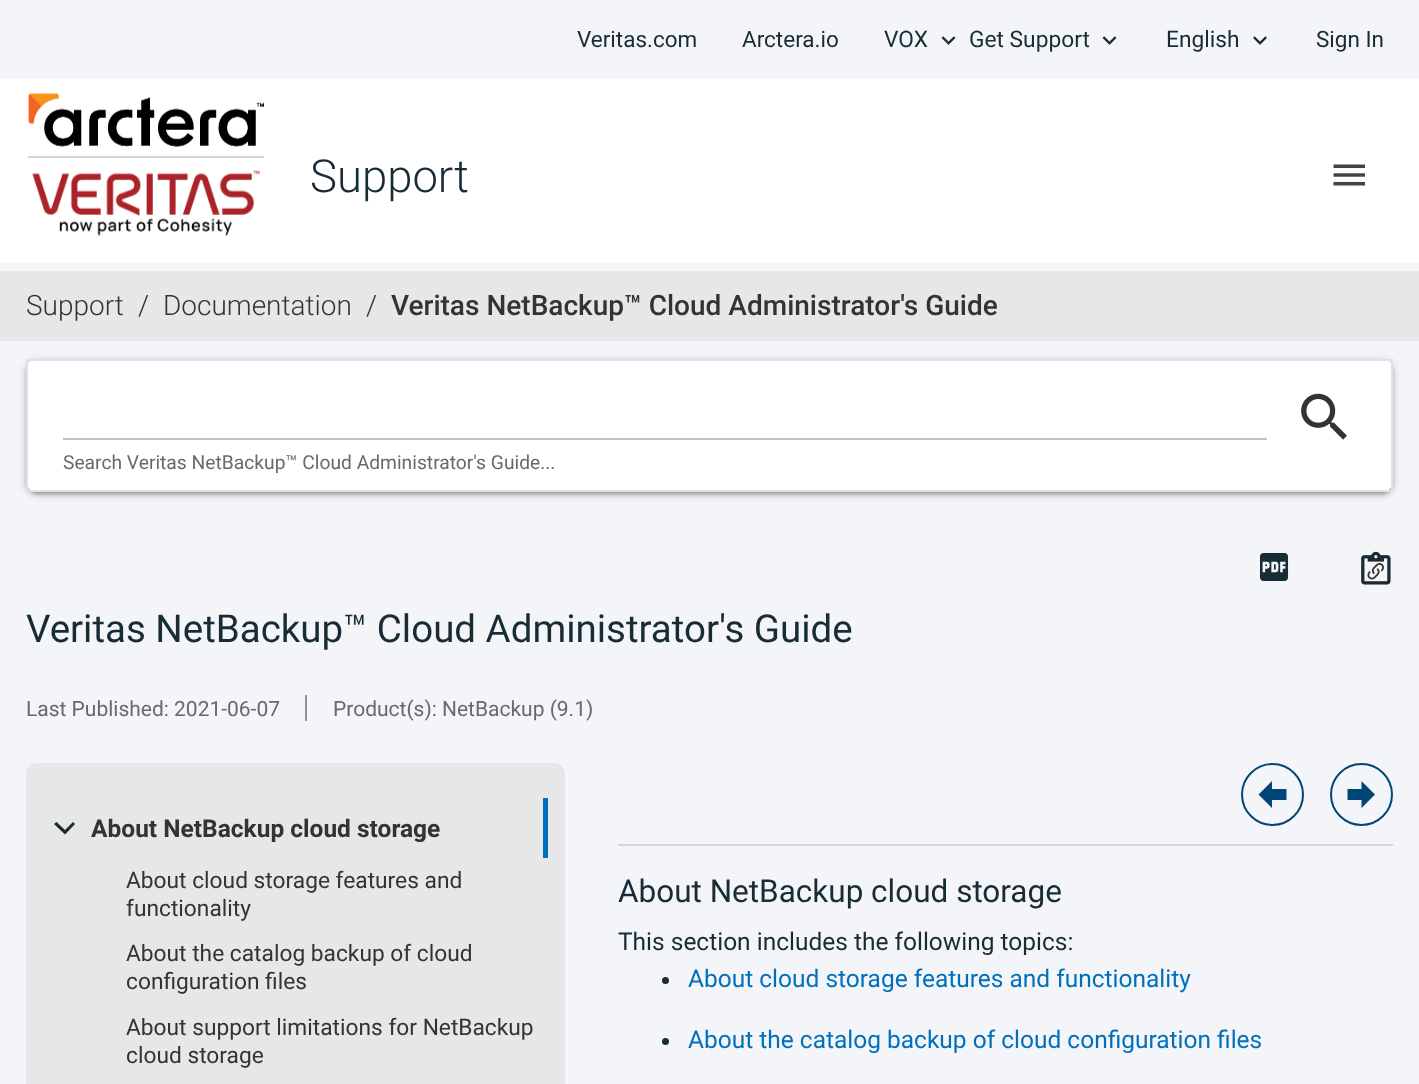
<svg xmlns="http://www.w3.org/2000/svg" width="1419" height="1084">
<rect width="100%" height="100%" fill="#f4f5f8"/>
<text x="577" y="47" style="font-family:Roboto;font-size:22.5px;fill:#182c35">Veritas.com</text>
<text x="742" y="47" style="font-family:Roboto;font-size:22.5px;fill:#182c35">Arctera.io</text>
<text x="884" y="47" style="font-family:Roboto;font-size:22.75px;fill:#182c35">VOX</text>
<image x="941" y="36" width="15" height="9" href="media/1.png"/>
<text x="969" y="47" style="font-family:Roboto;font-size:22.75px;fill:#182c35">Get Support</text>
<image x="1102" y="36" width="15" height="9" href="media/1.png"/>
<text x="1166" y="47" style="font-family:Roboto;font-size:22.75px;fill:#182c35">English</text>
<image x="1253" y="36" width="14" height="9" href="media/2.png"/>
<text x="1316" y="47" style="font-family:Roboto;font-size:22.5px;fill:#182c35">Sign In</text>
<rect y="79" width="1419" height="184" fill="#fff"/>
<image x="28" y="92" width="236" height="55" href="media/3.png"/>
<rect x="28" y="156" width="236" height="2" fill="#d5d5d5"/>
<image x="32" y="170" width="228" height="66" href="media/4.png"/>
<text x="310" y="192" style="font-family:Roboto;font-size:45.5px;font-weight:300;fill:#182c35">Support</text>
<image x="1333" y="164" width="32" height="22" href="media/5.png"/>
<rect y="271" width="1419" height="70" fill="#e7e7e7"/>
<text x="26" y="315" style="font-family:Roboto;font-size:28px;font-weight:300;fill:#333">Support</text>
<text x="138" y="315" style="font-family:Roboto;font-size:28px;font-weight:300;fill:#333">/</text>
<text x="163" y="315" style="font-family:Roboto;font-size:28px;font-weight:300;fill:#333">Documentation</text>
<text x="366" y="315" style="font-family:Roboto;font-size:28px;font-weight:300;fill:#333">/</text>
<text x="391" y="315" style="font-family:Roboto;font-size:28px;font-weight:500;fill:#333">Veritas NetBackup™ Cloud Administrator's Guide</text>
<rect x="30" y="368" width="1360" height="126" rx="7" fill="#0000001f" filter="blur(1px)"/>
<rect x="26" y="362" width="1367" height="133" rx="11" fill="#00000024" filter="blur(2px)"/>
<rect x="26" y="361" width="1367" height="133" rx="11" fill="#00000033" filter="blur(4.5px)"/>
<rect x="26" y="359" width="1367" height="133" rx="11" fill="#fff"/>
<rect x="27" y="360" width="1365" height="131" fill="none" stroke="#dee2e6" stroke-width="2"/>
<rect x="63" y="438" width="1204" height="2" fill="#c2c2c2"/>
<image x="1301" y="393" width="46" height="47" href="media/6.png"/>
<text x="63" y="469" style="font-family:Roboto;font-size:19.25px;fill:#696969">Search Veritas NetBackup™ Cloud Administrator's Guide...</text>
<image x="1259" y="553" width="30" height="28" href="media/7.png"/>
<image x="1361" y="551" width="30" height="34" href="media/8.png"/>
<image x="1367" y="563" width="17" height="17" href="media/9.png"/>
<text x="26" y="642" style="font-family:Roboto;font-size:38.5px;fill:#182c35">Veritas NetBackup™ Cloud Administrator's Guide</text>
<text x="26" y="716" style="font-family:Roboto;font-size:21px;fill:#696969">Last Published: 2021-06-07</text>
<rect x="305" y="695" width="2" height="26" fill="#939393"/>
<text x="333" y="716" style="font-family:Roboto;font-size:21px;fill:#696969">Product(s): NetBackup (9.1)</text>
<rect x="26" y="763" width="539" height="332" rx="11" fill="#e7e7e7"/>
<rect x="543" y="798" width="5" height="60" fill="#0070bd"/>
<path d="M56.5 822l8.5 8l8-8l2 2l-10 10.5l-11-10.5z" fill="#182c35"/>
<text x="91" y="837" style="font-family:Roboto;font-size:24.5px;font-weight:bold;fill:#333">About NetBackup cloud storage</text>
<text x="126" y="888" style="font-family:Roboto;font-size:22.75px;fill:#333">About cloud storage features and</text>
<text x="126" y="916" style="font-family:Roboto;font-size:22.75px;fill:#333">functionality</text>
<text x="126" y="961" style="font-family:Roboto;font-size:22.75px;fill:#333">About the catalog backup of cloud</text>
<text x="126" y="989" style="font-family:Roboto;font-size:22.75px;fill:#333">configuration files</text>
<text x="126" y="1035" style="font-family:Roboto;font-size:22.75px;fill:#333">About support limitations for NetBackup</text>
<text x="126" y="1063" style="font-family:Roboto;font-size:22.75px;fill:#333">cloud storage</text>
<rect x="618" y="844" width="775" height="2" fill="#d5d5d5"/>
<circle cx="1272.5" cy="794.5" r="30.5" fill="none" stroke="#004677" stroke-width="2"/>
<path d="M1286.5 789v11h-14.5v8l-13.5-13.5l13.5-13.5v8z" fill="#004677"/>
<circle cx="1361.5" cy="794.5" r="30.5" fill="none" stroke="#004677" stroke-width="2"/>
<path d="M1347.5 800v-11h14v-8l13.5 13.5l-13.5 13.5v-8z" fill="#004677"/>
<text x="618" y="902" style="font-family:Roboto;font-size:31.5px;fill:#182c35">About NetBackup cloud storage</text>
<text x="618" y="950" style="font-family:Roboto;font-size:24.5px;fill:#182c35">This section includes the following topics:</text>
<circle cx="665.5" cy="980.5" r="3.5" fill="#182c35"/>
<text x="688" y="987" style="font-family:Roboto;font-size:24.5px;fill:#0070bd">About cloud storage features and functionality</text>
<circle cx="665.5" cy="1041.5" r="3.5" fill="#182c35"/>
<text x="688" y="1048" style="font-family:Roboto;font-size:24.5px;fill:#0070bd">About the catalog backup of cloud configuration files</text>
</svg>
